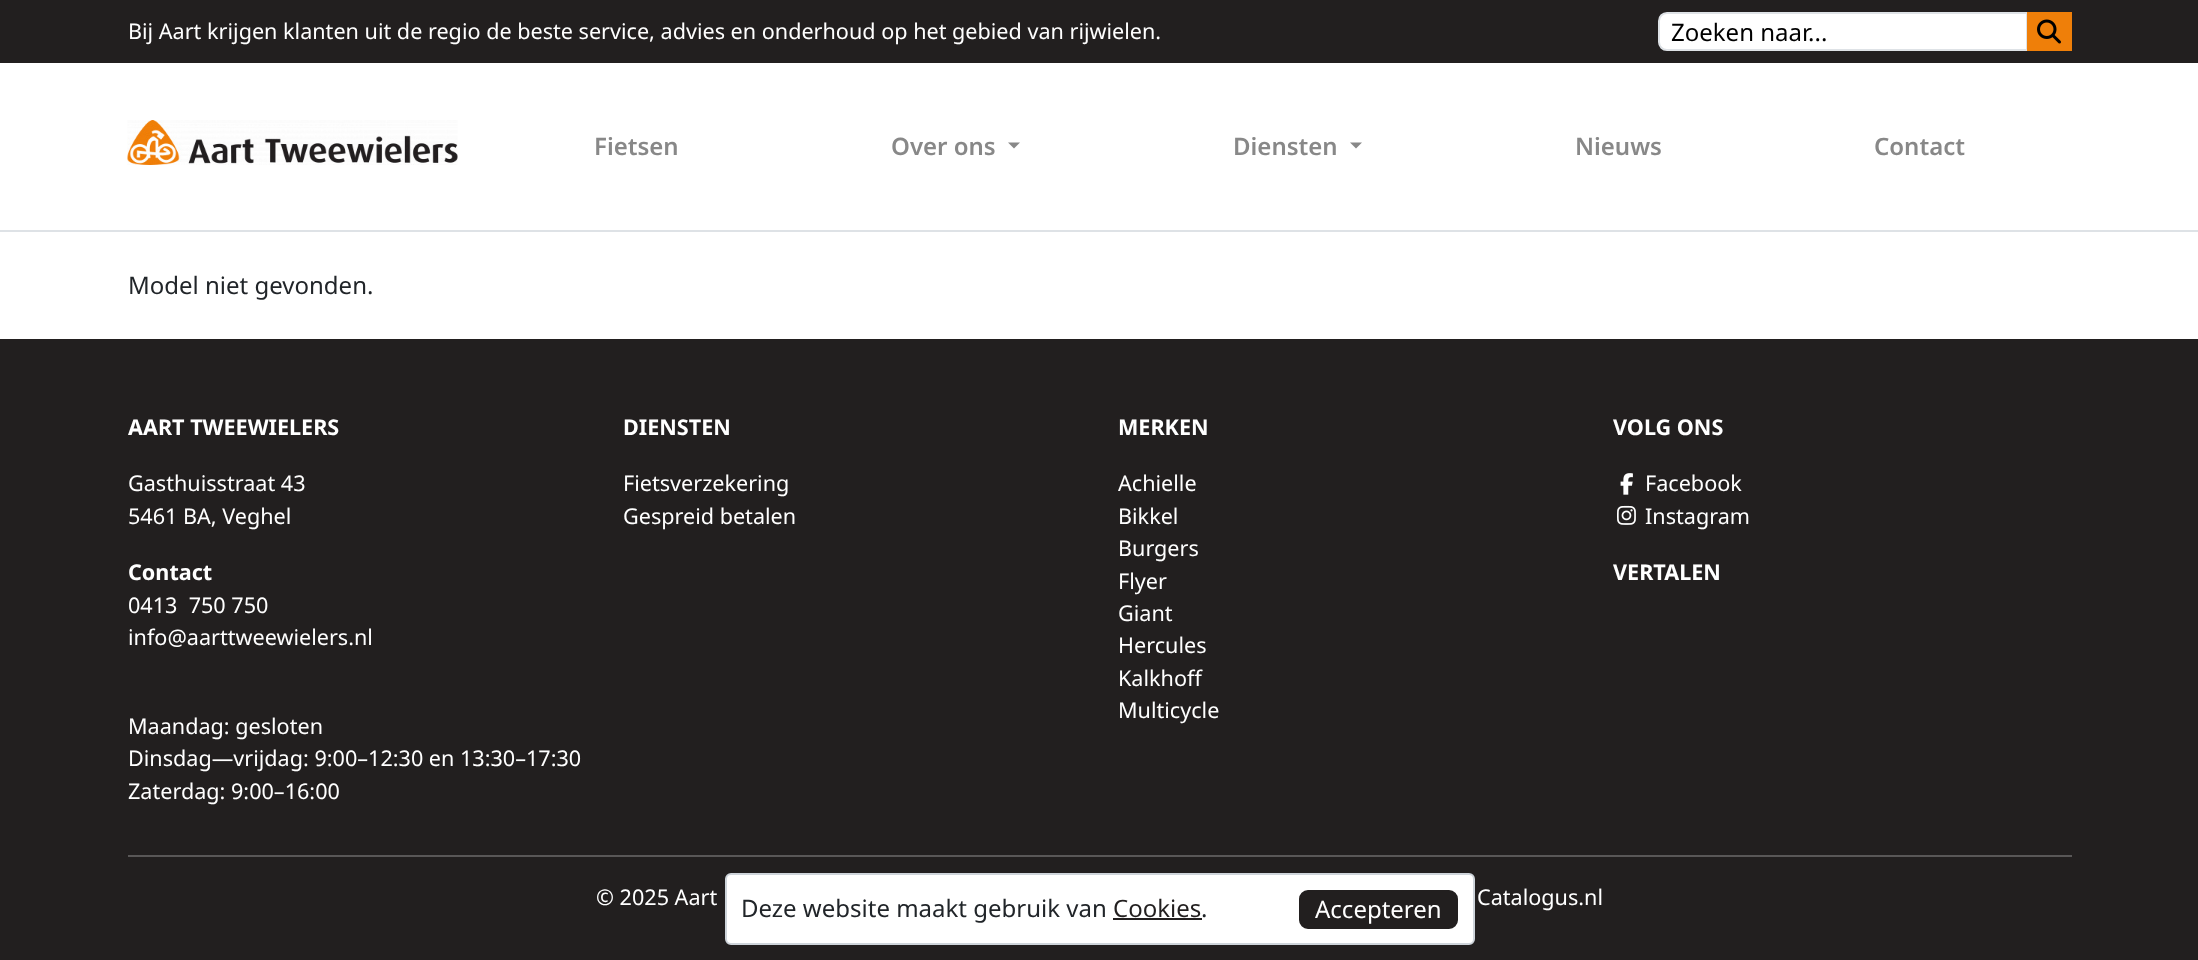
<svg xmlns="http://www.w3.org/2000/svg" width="2198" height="960">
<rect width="100%" height="100%" fill="#fff"/>
<rect width="2198" height="63" fill="#221f1f"/>
<text x="128" y="39" style="font-family:Noto Sans;font-size:21.6px;fill:#fff">Bij Aart krijgen klanten uit de regio de beste service, advies en onderhoud op het gebied van rijwielen.</text>
<path d="M1667 13h360v37h-360c-4.5 0-8-3.5-8-8v-21c0-4.5 3.5-8 8-8z" fill="#fff" stroke="#dee2e6" stroke-width="2"/>
<text x="1671" y="41" style="font-family:Noto Sans;font-size:24px;fill:#000">Zoeken naar...</text>
<rect x="2027" y="12" width="45" height="39" fill="#ef7f09"/>
<image x="2037" y="19" width="24" height="25" href="media/1.png"/>
<rect y="230" width="2198" height="2" fill="#dee2e6"/>
<image x="127" y="120" width="331" height="45" href="media/2.png"/>
<text x="594" y="155" style="font-family:Noto Sans;font-size:24px;font-weight:600;fill:#888">Fietsen</text>
<text x="891" y="155" style="font-family:Noto Sans;font-size:24px;font-weight:600;fill:#888">Over ons</text>
<path d="M1008 142.5h12l-6 6z" fill="#888"/>
<text x="1233" y="155" style="font-family:Noto Sans;font-size:24px;font-weight:600;fill:#888">Diensten</text>
<path d="M1350 142.5h12l-6 6z" fill="#888"/>
<text x="1575" y="155" style="font-family:Noto Sans;font-size:24px;font-weight:600;fill:#888">Nieuws</text>
<text x="1874" y="155" style="font-family:Noto Sans;font-size:24px;font-weight:600;fill:#888">Contact</text>
<text x="128" y="294" style="font-family:Noto Sans;font-size:24px;fill:#212529">Model niet gevonden.</text>
<rect y="339" width="2198" height="621" fill="#221f1f"/>
<text x="128" y="435" style="font-family:Noto Sans;font-size:21.6px;font-weight:bold;fill:#fff">AART TWEEWIELERS</text>
<text x="128" y="491" style="font-family:Noto Sans;font-size:21.6px;fill:#fff">Gasthuisstraat 43</text>
<text x="128" y="524" style="font-family:Noto Sans;font-size:21.6px;fill:#fff">5461 BA, Veghel</text>
<text x="128" y="580" style="font-family:Noto Sans;font-size:21.6px;font-weight:bold;fill:#fff">Contact</text>
<text x="128" y="613" style="font-family:Noto Sans;font-size:21.6px;fill:#fff" xml:space="preserve">0413  750 750</text>
<text x="128" y="645" style="font-family:Noto Sans;font-size:21.6px;fill:#fff">info@aarttweewielers.nl</text>
<text x="128" y="734" style="font-family:Noto Sans;font-size:21.6px;fill:#fff">Maandag: gesloten</text>
<text x="128" y="766" style="font-family:Noto Sans;font-size:21.6px;fill:#fff">Dinsdag—vrijdag: 9:00–12:30 en 13:30–17:30</text>
<text x="128" y="799" style="font-family:Noto Sans;font-size:21.6px;fill:#fff">Zaterdag: 9:00–16:00</text>
<text x="623" y="435" style="font-family:Noto Sans;font-size:21.6px;font-weight:bold;fill:#fff">DIENSTEN</text>
<text x="623" y="491" style="font-family:Noto Sans;font-size:21.6px;fill:#fff">Fietsverzekering</text>
<text x="623" y="524" style="font-family:Noto Sans;font-size:21.6px;fill:#fff">Gespreid betalen</text>
<text x="1118" y="435" style="font-family:Noto Sans;font-size:21.6px;font-weight:bold;fill:#fff">MERKEN</text>
<text x="1118" y="491" style="font-family:Noto Sans;font-size:21.6px;fill:#fff">Achielle</text>
<text x="1118" y="524" style="font-family:Noto Sans;font-size:21.6px;fill:#fff">Bikkel</text>
<text x="1118" y="556" style="font-family:Noto Sans;font-size:21.6px;fill:#fff">Burgers</text>
<text x="1118" y="589" style="font-family:Noto Sans;font-size:21.6px;fill:#fff">Flyer</text>
<text x="1118" y="621" style="font-family:Noto Sans;font-size:21.6px;fill:#fff">Giant</text>
<text x="1118" y="653" style="font-family:Noto Sans;font-size:21.6px;fill:#fff">Hercules</text>
<text x="1118" y="686" style="font-family:Noto Sans;font-size:21.6px;fill:#fff">Kalkhoff</text>
<text x="1118" y="718" style="font-family:Noto Sans;font-size:21.6px;fill:#fff">Multicycle</text>
<text x="1613" y="435" style="font-family:Noto Sans;font-size:21.6px;font-weight:bold;fill:#fff">VOLG ONS</text>
<image x="1620" y="473" width="13" height="22" href="media/3.png"/>
<text x="1645" y="491" style="font-family:Noto Sans;font-size:21.6px;fill:#fff">Facebook</text>
<image x="1617" y="505" width="19" height="20" href="media/4.png"/>
<text x="1645" y="524" style="font-family:Noto Sans;font-size:21.6px;fill:#fff">Instagram</text>
<text x="1613" y="580" style="font-family:Noto Sans;font-size:21.6px;font-weight:bold;fill:#fff">VERTALEN</text>
<rect x="128" y="855" width="1944" height="2" fill="#595757"/>
<text x="596" y="905" style="font-family:Noto Sans;font-size:21.6px;fill:#fff">© 2025 Aart</text>
<text x="1477" y="905" style="font-family:Noto Sans;font-size:21.6px;fill:#fff">Catalogus.nl</text>
<rect x="726" y="874" width="748" height="70" rx="5" fill="#fff" stroke="#ced4da" stroke-width="2"/>
<text x="741" y="917" style="font-family:Noto Sans;font-size:24px;fill:#212529">Deze website maakt gebruik van</text>
<text x="1113" y="917" style="font-family:Noto Sans;font-size:24px;fill:#221f1f">Cookies</text>
<rect x="1113" y="918" width="89" height="2" fill="#221f1f"/>
<text x="1201" y="917" style="font-family:Noto Sans;font-size:24px;fill:#212529">.</text>
<rect x="1300" y="891" width="157" height="37" rx="8" fill="#221f1f" stroke="#221f1f" stroke-width="2"/>
<text x="1315" y="918" style="font-family:Noto Sans;font-size:24px;fill:#fff">Accepteren</text>
</svg>
